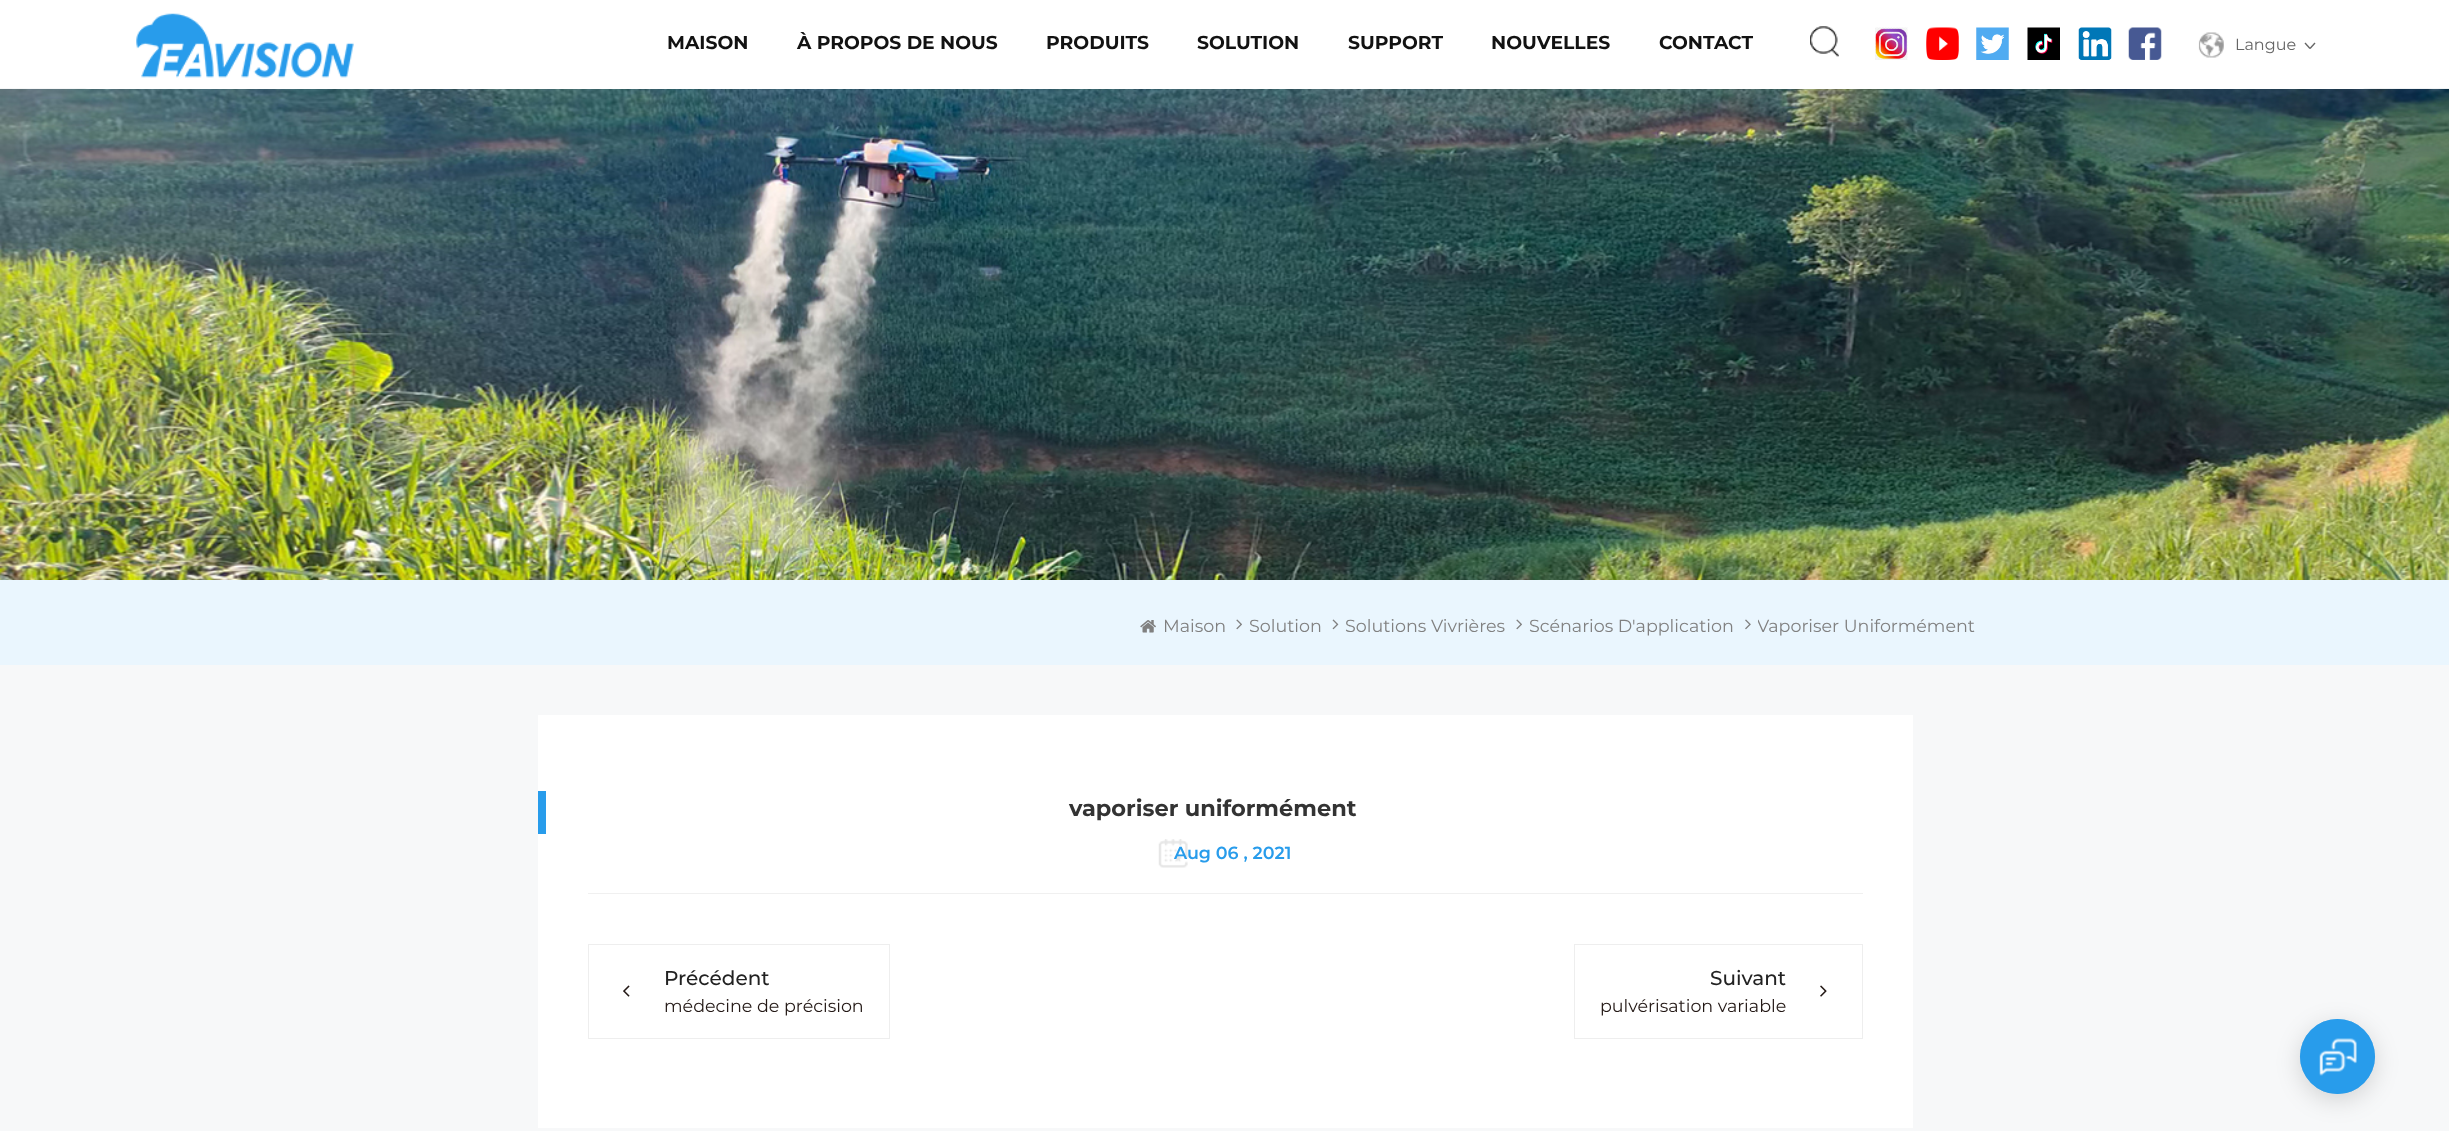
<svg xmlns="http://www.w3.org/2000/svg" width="2449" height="1131">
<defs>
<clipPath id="clip1"><rect x="1758" y="613" width="217" height="27"/></clipPath>
</defs>
<rect width="100%" height="100%" fill="#fff"/>
<image x="0" y="88" width="2449" height="492" href="media/10.png"/>
<rect x="71" width="2308" height="89" rx="20" fill="#fff"/>
<image x="136" y="13" width="218" height="65" href="media/1.png"/>
<text x="667" y="49" style="font-family:Montserrat;font-size:18.75px;font-weight:bold;fill:#121212">MAISON</text>
<text x="797" y="49" style="font-family:Montserrat;font-size:18.75px;font-weight:bold;fill:#121212">À PROPOS DE NOUS</text>
<text x="1046" y="49" style="font-family:Montserrat;font-size:18.75px;font-weight:bold;fill:#121212">PRODUITS</text>
<text x="1197" y="49" style="font-family:Montserrat;font-size:18.75px;font-weight:bold;fill:#121212">SOLUTION</text>
<text x="1348" y="49" style="font-family:Montserrat;font-size:18.75px;font-weight:bold;fill:#121212">SUPPORT</text>
<text x="1491" y="49" style="font-family:Montserrat;font-size:18.75px;font-weight:bold;fill:#121212">NOUVELLES</text>
<text x="1659" y="49" style="font-family:Montserrat;font-size:18.75px;font-weight:bold;fill:#121212">CONTACT</text>
<image x="1810" y="26" width="29" height="31" href="media/2.png"/>
<image x="1875" y="27" width="33" height="33" href="media/3.png"/>
<image x="1926" y="27" width="33" height="33" href="media/4.png"/>
<image x="1976" y="27" width="33" height="33" href="media/5.png"/>
<image x="2027" y="27" width="33" height="33" href="media/6.png"/>
<image x="2078" y="27" width="34" height="33" href="media/7.png"/>
<image x="2128" y="27" width="34" height="33" href="media/8.png"/>
<image x="2198" y="32" width="26" height="26" href="media/9.png"/>
<text x="2235" y="50" style="font-family:Montserrat;font-size:16px;fill:#666">Langue</text>
<path d="M2309.5 48l5-5.5l1 1l-5 5.5z" fill="#666"/>
<path d="M2305.5 42.5l5 5.5l-1 1l-5-5.5z" fill="#666"/>
<rect y="580" width="2449" height="85" fill="#eaf6fe"/>
<image x="1140" y="620" width="16" height="13" href="media/11.png"/>
<text x="1163" y="632" style="font-family:Montserrat;font-size:17.5px;fill:#808080">Maison</text>
<image x="1236" y="619" width="6" height="11" href="media/12.png"/>
<text x="1249" y="632" style="font-family:Montserrat;font-size:17.5px;fill:#808080">Solution</text>
<image x="1332" y="619" width="7" height="11" href="media/13.png"/>
<text x="1345" y="632" style="font-family:Montserrat;font-size:17.5px;fill:#808080">Solutions Vivrières</text>
<image x="1516" y="619" width="6" height="11" href="media/12.png"/>
<text x="1529" y="632" style="font-family:Montserrat;font-size:17.5px;fill:#808080">Scénarios D'application</text>
<image x="1745" y="619" width="6" height="11" href="media/14.png"/>
<g clip-path="url(#clip1)">
<text x="1757" y="632" style="font-family:Montserrat;font-size:17.5px;fill:#808080">Vaporiser Uniformément</text>
</g>
<rect y="665" width="2449" height="466" fill="#f7f8f9"/>
<rect x="538" y="715" width="1375" height="413" fill="#fff"/>
<rect x="538" y="791" width="8" height="43" fill="#289ceb"/>
<rect x="588" y="893" width="1275" height="1" fill="#f0f0f0"/>
<text x="1069" y="816" style="font-family:Montserrat;font-size:22.5px;font-weight:bold;fill:#333">vaporiser uniformément</text>
<image x="1158" y="839" width="30" height="29" href="media/15.png"/>
<text x="1174" y="859" style="font-family:Montserrat;font-size:17.5px;font-weight:600;fill:#289ceb">Aug 06 , 2021</text>
<rect x="588.5" y="944.5" width="301" height="94" fill="none" stroke="#eee"/>
<text x="664" y="985" style="font-family:Montserrat;font-size:20px;font-weight:500;fill:#222">Précédent</text>
<image x="623" y="985" width="7" height="12" href="media/16.png"/>
<text x="664" y="1012" style="font-family:Montserrat;font-size:17.5px;fill:#231815">médecine de précision</text>
<rect x="1574.5" y="944.5" width="288" height="94" fill="none" stroke="#eee"/>
<text x="1710" y="985" style="font-family:Montserrat;font-size:20px;font-weight:500;fill:#222">Suivant</text>
<image x="1820" y="985" width="7" height="12" href="media/17.png"/>
<text x="1600" y="1012" style="font-family:Montserrat;font-size:17.5px;fill:#231815">pulvérisation variable</text>
<rect x="2300" y="1025" width="75" height="75" rx="37.5" fill="#00000026" filter="blur(12.5px)"/>
<circle cx="2337.5" cy="1056.5" r="37.5" fill="#289ceb"/>
<circle cx="2337.5" cy="1056.5" r="37.5" fill="#289ceb40"/>
<circle cx="2337.5" cy="1056.5" r="37.5" fill="#289ceb40"/>
<circle cx="2337.5" cy="1056.5" r="37.5" fill="#289ceb40"/>
<image x="2319" y="1038" width="38" height="38" href="media/18.png"/>
</svg>
